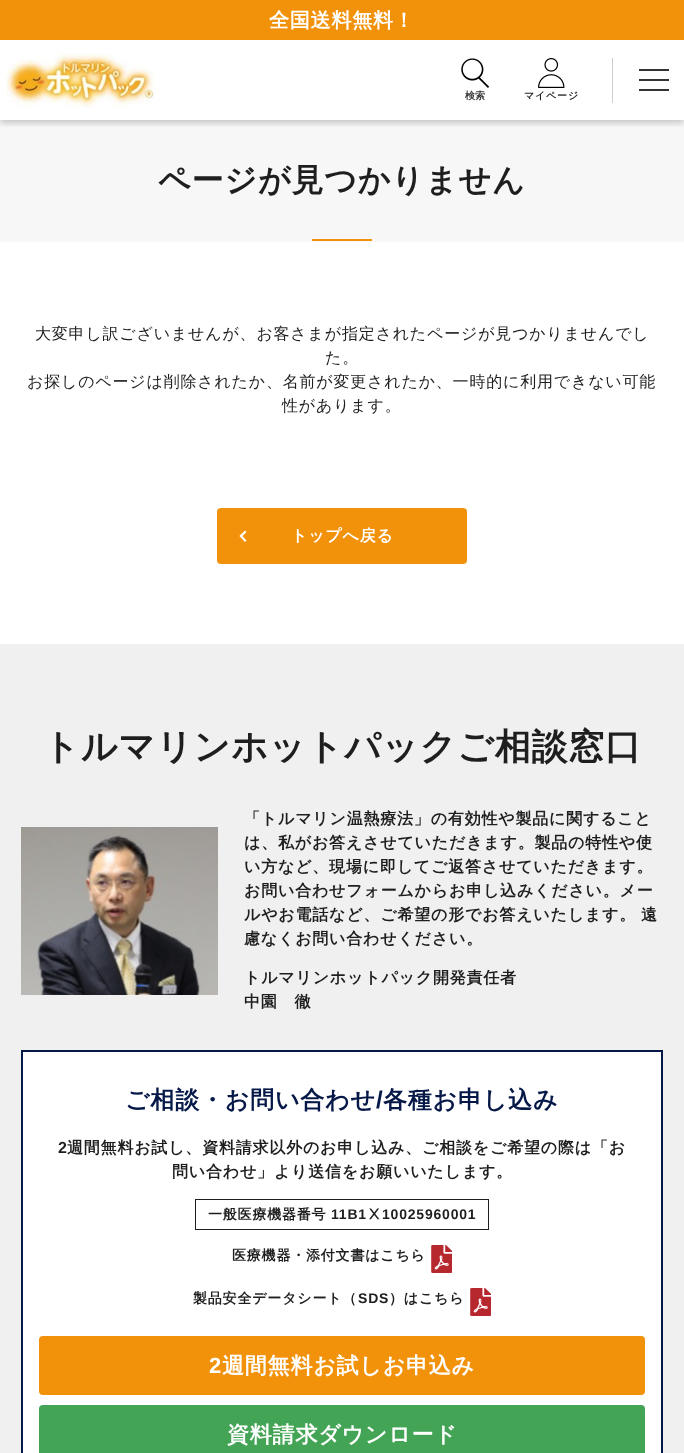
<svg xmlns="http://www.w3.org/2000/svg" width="684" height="1453">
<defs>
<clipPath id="clip1"><rect x="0" y="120" width="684" height="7"/></clipPath>
</defs>
<rect width="100%" height="100%" fill="#fff"/>
<rect y="120" width="684" height="122" fill="#f7f7f7"/>
<g clip-path="url(#clip1)">
<rect y="3" width="684" height="120" fill="#00000033" filter="blur(3px)"/>
</g>
<rect width="684" height="40" fill="#f2910a"/>
<text x="269" y="27" style="font-family:WenQuanYi Zen Hei;font-size:20px;font-weight:bold;letter-spacing:0.8px;fill:#fff">全国送料無料！</text>
<image x="6" y="53" width="149" height="55" href="media/1.png"/>
<rect x="639" y="79" width="30" height="2" fill="#333"/>
<rect x="639" y="69" width="30" height="2" fill="#333"/>
<rect x="639" y="89" width="30" height="2" fill="#333"/>
<rect x="612" y="58" width="1" height="45" fill="#cdcdcd"/>
<image x="461" y="58" width="29" height="30" href="media/2.png"/>
<text x="465" y="99" style="font-family:WenQuanYi Zen Hei;font-size:10px;font-weight:bold;fill:#333">検索</text>
<image x="538" y="58" width="27" height="30" href="media/3.png"/>
<text x="524" y="99" style="font-family:WenQuanYi Zen Hei;font-size:10px;font-weight:bold;letter-spacing:0.8px;fill:#1e1e1e">マイページ</text>
<text x="158" y="191" style="font-family:WenQuanYi Zen Hei;font-size:32px;font-weight:bold;letter-spacing:0.8px;fill:#1e1e1e">ページが見つかりません</text>
<rect x="312" y="239" width="60" height="2" fill="#f2910a"/>
<text x="35" y="339" style="font-family:WenQuanYi Zen Hei;font-size:16px;font-weight:500;letter-spacing:0.8px;fill:#1e1e1e">大変申し訳ございませんが、お客さまが指定されたページが見つかりませんでし</text>
<text x="325" y="363" style="font-family:WenQuanYi Zen Hei;font-size:16px;font-weight:500;letter-spacing:0.8px;fill:#1e1e1e">た。</text>
<text x="27" y="387" style="font-family:WenQuanYi Zen Hei;font-size:16px;font-weight:500;letter-spacing:0.8px;fill:#1e1e1e">お探しのページは削除されたか、名前が変更されたか、一時的に利用できない可能</text>
<text x="282" y="411" style="font-family:WenQuanYi Zen Hei;font-size:16px;font-weight:500;letter-spacing:0.8px;fill:#1e1e1e">性があります。</text>
<rect x="217" y="508" width="250" height="56" rx="4" fill="#f2910a"/>
<path d="M245 542l-5.5-6l1.5-1.5l5.5 6z" fill="#fff"/>
<path d="M241 537.5l-1.5-1.5l5.5-5.5l1.5 1.5z" fill="#fff"/>
<text x="291" y="541" style="font-family:WenQuanYi Zen Hei;font-size:16px;font-weight:bold;letter-spacing:0.8px;fill:#fff">トップへ戻る</text>
<rect y="644" width="684" height="809" fill="#f0f0f0"/>
<text x="43" y="759" style="font-family:WenQuanYi Zen Hei;font-size:36px;font-weight:bold;letter-spacing:0.8px;fill:#1e1e1e">トルマリンホットパックご相談窓口</text>
<image x="21" y="827" width="197" height="168" href="media/4.png"/>
<text x="244" y="824" style="font-family:WenQuanYi Zen Hei;font-size:16px;font-weight:bold;letter-spacing:0.8px;fill:#1e1e1e">「トルマリン温熱療法」の有効性や製品に関すること</text>
<text x="244" y="848" style="font-family:WenQuanYi Zen Hei;font-size:16px;font-weight:bold;letter-spacing:0.8px;fill:#1e1e1e">は、私がお答えさせていただきます。製品の特性や使</text>
<text x="244" y="872" style="font-family:WenQuanYi Zen Hei;font-size:16px;font-weight:bold;letter-spacing:0.8px;fill:#1e1e1e">い方など、現場に即してご返答させていただきます。</text>
<text x="244" y="896" style="font-family:WenQuanYi Zen Hei;font-size:16px;font-weight:bold;letter-spacing:0.8px;fill:#1e1e1e">お問い合わせフォームからお申し込みください。メー</text>
<text x="244" y="920" style="font-family:WenQuanYi Zen Hei;font-size:16px;font-weight:bold;letter-spacing:0.8px;fill:#1e1e1e">ルやお電話など、ご希望の形でお答えいたします。</text>
<text x="641" y="920" style="font-family:WenQuanYi Zen Hei;font-size:16px;font-weight:bold;letter-spacing:0.8px;fill:#1e1e1e">遠</text>
<text x="244" y="944" style="font-family:WenQuanYi Zen Hei;font-size:16px;font-weight:bold;letter-spacing:0.8px;fill:#1e1e1e">慮なくお問い合わせください。</text>
<text x="244" y="983" style="font-family:WenQuanYi Zen Hei;font-size:16px;font-weight:bold;letter-spacing:0.8px;fill:#1e1e1e">トルマリンホットパック開発責任者</text>
<text x="244" y="1007" style="font-family:WenQuanYi Zen Hei;font-size:16px;font-weight:bold;letter-spacing:0.8px;fill:#1e1e1e">中園　徹</text>
<rect x="22" y="1051" width="640" height="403" fill="#fff" stroke="#061848" stroke-width="2"/>
<text x="125" y="1108" style="font-family:WenQuanYi Zen Hei;font-size:24px;font-weight:bold;letter-spacing:0.8px;fill:#061848">ご相談・お問い合わせ</text>
<text x="376" y="1108" style="font-family:Liberation Sans;font-size:24px;font-weight:bold;letter-spacing:0.8px;fill:#061848">/</text>
<text x="383" y="1108" style="font-family:WenQuanYi Zen Hei;font-size:24px;font-weight:bold;letter-spacing:0.8px;fill:#061848">各種お申し込み</text>
<text x="58" y="1153" style="font-family:Liberation Sans;font-size:16px;font-weight:bold;letter-spacing:0.8px;fill:#1e1e1e">2</text>
<text x="67" y="1153" style="font-family:WenQuanYi Zen Hei;font-size:16px;font-weight:bold;letter-spacing:0.8px;fill:#1e1e1e">週間無料お試し、資料請求以外のお申し込み、ご相談をご希望の際は「お</text>
<text x="172" y="1177" style="font-family:WenQuanYi Zen Hei;font-size:16px;font-weight:bold;letter-spacing:0.8px;fill:#1e1e1e">問い合わせ」より送信をお願いいたします。</text>
<rect x="195.5" y="1199.5" width="293" height="30" fill="none" stroke="#1e1e1e"/>
<text x="208" y="1219" style="font-family:WenQuanYi Zen Hei;font-size:14px;font-weight:bold;letter-spacing:0.8px;fill:#1e1e1e">一般医療機器番号</text>
<text x="331" y="1219" style="font-family:Liberation Sans;font-size:14px;font-weight:bold;letter-spacing:0.8px;fill:#1e1e1e">11B1</text>
<text x="367" y="1219" style="font-family:WenQuanYi Zen Hei;font-size:14px;font-weight:bold;letter-spacing:0.8px;fill:#1e1e1e">Ⅹ</text>
<text x="382" y="1219" style="font-family:Liberation Sans;font-size:14px;font-weight:bold;letter-spacing:0.8px;fill:#1e1e1e">10025960001</text>
<text x="232" y="1260" style="font-family:WenQuanYi Zen Hei;font-size:14px;font-weight:bold;letter-spacing:0.8px;fill:#1e1e1e">医療機器・添付文書はこちら</text>
<image x="431" y="1245" width="21" height="28" href="media/5.png"/>
<text x="193" y="1303" style="font-family:WenQuanYi Zen Hei;font-size:14px;font-weight:bold;letter-spacing:0.8px;fill:#1e1e1e">製品安全データシート（</text>
<text x="358" y="1303" style="font-family:Liberation Sans;font-size:14px;font-weight:bold;letter-spacing:0.8px;fill:#1e1e1e">SDS</text>
<text x="389" y="1303" style="font-family:WenQuanYi Zen Hei;font-size:14px;font-weight:bold;letter-spacing:0.8px;fill:#1e1e1e">）はこちら</text>
<image x="470" y="1288" width="21" height="28" href="media/5.png"/>
<rect x="39" y="1336" width="606" height="59" rx="4" fill="#f2910a"/>
<text x="209" y="1373" style="font-family:Liberation Sans;font-size:22px;font-weight:bold;letter-spacing:0.8px;fill:#fff">2</text>
<text x="222" y="1373" style="font-family:WenQuanYi Zen Hei;font-size:22px;font-weight:bold;letter-spacing:0.8px;fill:#fff">週間無料お試しお申込み</text>
<rect x="39" y="1405" width="606" height="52" rx="4" fill="#44a456"/>
<text x="227" y="1442" style="font-family:WenQuanYi Zen Hei;font-size:22px;font-weight:bold;letter-spacing:0.8px;fill:#fff">資料請求ダウンロード</text>
</svg>
